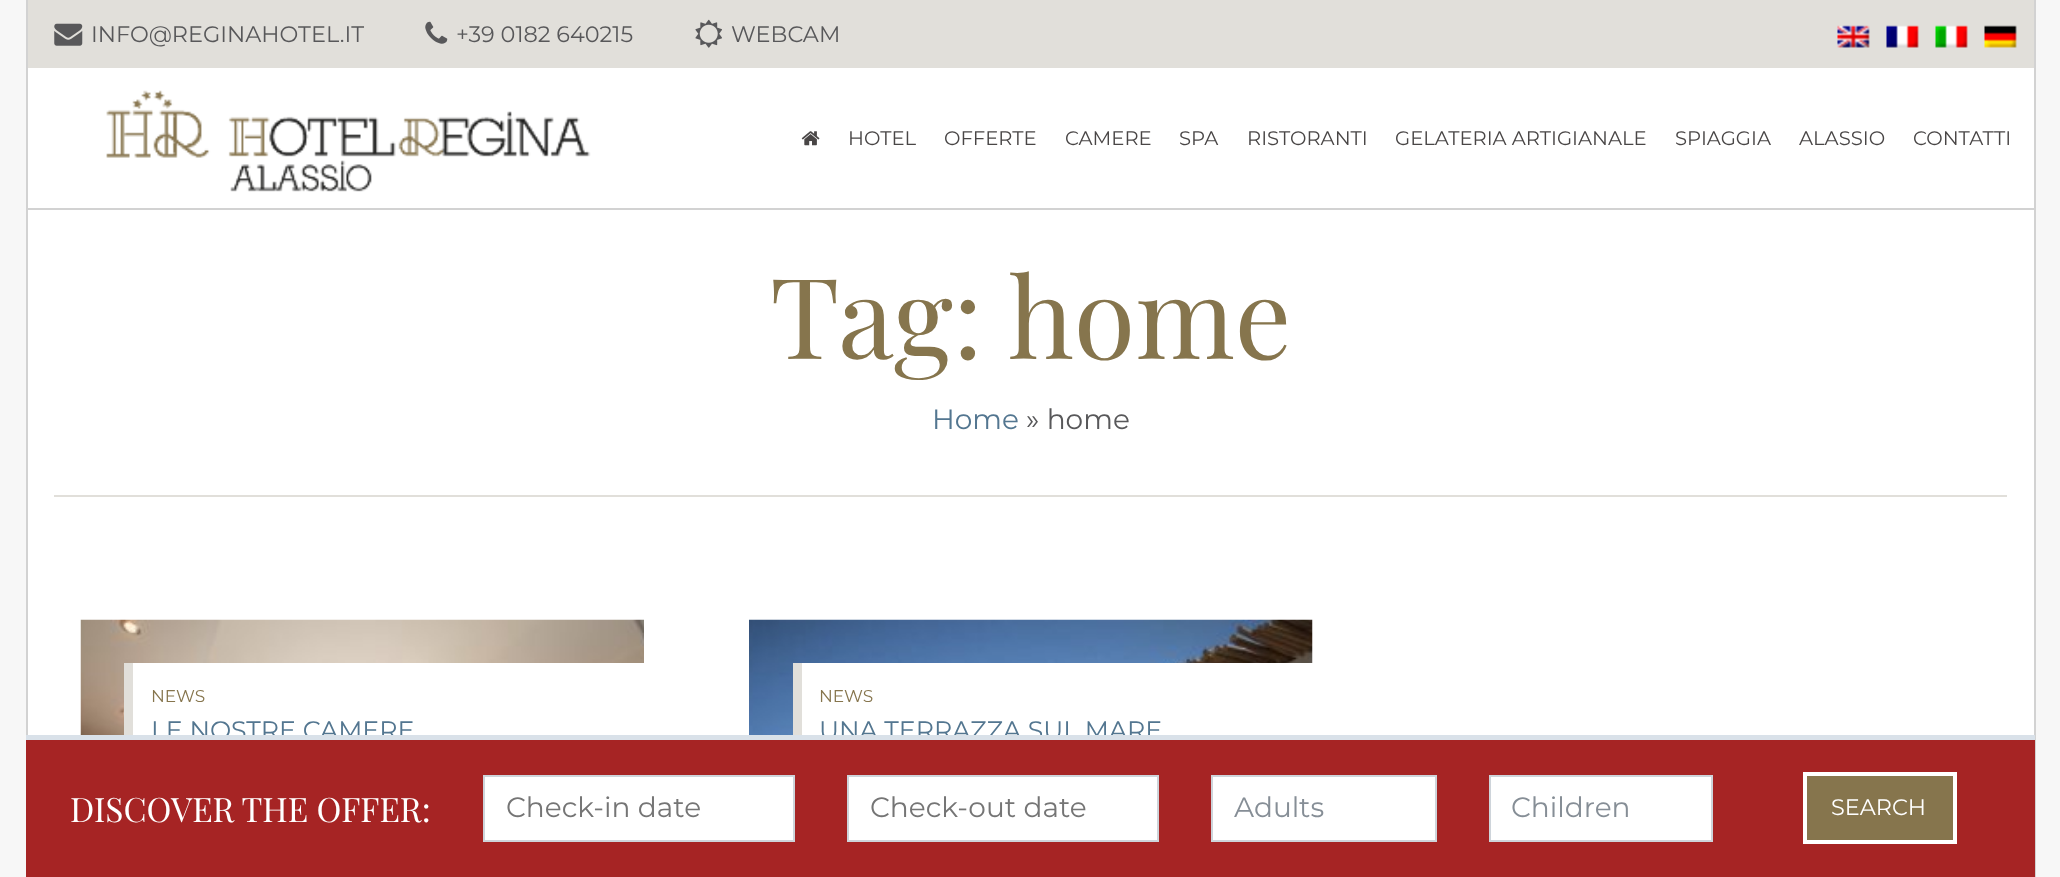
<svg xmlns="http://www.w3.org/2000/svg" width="2060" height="877">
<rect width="100%" height="100%" fill="#f7f7f7"/>
<rect x="28" y="68" width="2006" height="140" fill="#fff"/>
<rect x="2034" width="2" height="877" fill="#d2d2d2"/>
<rect x="26" y="208" width="2009" height="2" fill="#d2d2d2"/>
<rect x="26" width="2" height="210" fill="#d2d2d2"/>
<rect x="28" width="2006" height="68" fill="#e1dfda"/>
<image x="54" y="23" width="29" height="23" href="media/1.png"/>
<text x="91" y="42" style="font-family:Montserrat;font-size:22.4px;fill:#58585a">INFO@REGINAHOTEL.IT</text>
<image x="425" y="21" width="23" height="23" href="media/2.png"/>
<text x="456" y="42" style="font-family:Montserrat;font-size:22.4px;fill:#58585a">+39 0182 640215</text>
<image x="695" y="19" width="27" height="29" href="media/3.png"/>
<text x="731" y="42" style="font-family:Montserrat;font-size:22.4px;fill:#58585a">WEBCAM</text>
<image x="1837" y="25" width="33" height="23" href="media/4.png"/>
<image x="1886" y="25" width="33" height="23" href="media/5.png"/>
<image x="1935" y="25" width="33" height="23" href="media/6.png"/>
<image x="1984" y="25" width="33" height="23" href="media/7.png"/>
<image x="106" y="90" width="485" height="102" href="media/8.png"/>
<image x="801" y="131" width="19" height="15" href="media/9.png"/>
<text x="848" y="145" style="font-family:Montserrat;font-size:19.6px;fill:#494646">HOTEL</text>
<text x="944" y="145" style="font-family:Montserrat;font-size:19.6px;fill:#494646">OFFERTE</text>
<text x="1065" y="145" style="font-family:Montserrat;font-size:19.6px;fill:#494646">CAMERE</text>
<text x="1179" y="145" style="font-family:Montserrat;font-size:19.6px;fill:#494646">SPA</text>
<text x="1247" y="145" style="font-family:Montserrat;font-size:19.6px;fill:#494646">RISTORANTI</text>
<text x="1395" y="145" style="font-family:Montserrat;font-size:19.6px;fill:#494646">GELATERIA ARTIGIANALE</text>
<text x="1675" y="145" style="font-family:Montserrat;font-size:19.6px;fill:#494646">SPIAGGIA</text>
<text x="1799" y="145" style="font-family:Montserrat;font-size:19.6px;fill:#494646">ALASSIO</text>
<text x="1913" y="145" style="font-family:Montserrat;font-size:19.6px;fill:#494646">CONTATTI</text>
<rect x="28" y="210" width="2006" height="525" fill="#fff"/>
<rect x="26" y="210" width="2" height="525" fill="#d2d2d2"/>
<rect x="54" y="495" width="1953" height="2" fill="#e1dfda"/>
<text x="770" y="359" style="font-family:Playfair Display;font-size:112px;fill:#86754d">Tag:</text>
<text x="1008" y="359" style="font-family:Playfair Display;font-size:112px;fill:#86754d">home</text>
<text x="932" y="429" style="font-family:Montserrat;font-size:28px;fill:#537690">Home</text>
<text x="1026" y="429" style="font-family:Montserrat;font-size:28px;fill:#58585a">» home</text>
<image x="80" y="619" width="564" height="116" href="media/10.png"/>
<rect x="133" y="663" width="511" height="72" fill="#fff"/>
<rect x="124" y="663" width="9" height="72" fill="#e1dfda"/>
<text x="151" y="702" style="font-family:Montserrat;font-size:17px;fill:#86754d">NEWS</text>
<text x="151" y="739" style="font-family:Montserrat;font-size:25.25px;fill:#537690">LE NOSTRE CAMERE</text>
<image x="749" y="619" width="564" height="116" href="media/11.png"/>
<rect x="802" y="663" width="511" height="72" fill="#fff"/>
<rect x="793" y="663" width="9" height="72" fill="#e1dfda"/>
<text x="819" y="702" style="font-family:Montserrat;font-size:17px;fill:#86754d">NEWS</text>
<text x="819" y="739" style="font-family:Montserrat;font-size:25.25px;fill:#537690">UNA TERRAZZA SUL MARE</text>
<rect x="26" y="740" width="2009" height="137" fill="#a62424"/>
<rect x="26" y="735" width="2009" height="5" fill="#d9e1e9"/>
<text x="70" y="822" style="font-family:Playfair Display;font-size:33.6px;fill:#fff">DISCOVER THE OFFER:</text>
<rect x="484" y="776" width="310" height="65" fill="#fff" stroke="#ced4da" stroke-width="2"/>
<text x="506" y="817" style="font-family:Montserrat;font-size:28px;fill:#757575">Check-in date</text>
<rect x="848" y="776" width="310" height="65" fill="#fff" stroke="#ced4da" stroke-width="2"/>
<text x="870" y="817" style="font-family:Montserrat;font-size:28px;fill:#757575">Check-out date</text>
<rect x="1212" y="776" width="224" height="65" fill="#fff" stroke="#ced4da" stroke-width="2"/>
<text x="1234" y="817" style="font-family:Montserrat;font-size:28px;fill:#868e96">Adults</text>
<rect x="1490" y="776" width="222" height="65" fill="#fff" stroke="#ced4da" stroke-width="2"/>
<text x="1511" y="817" style="font-family:Montserrat;font-size:28px;fill:#868e96">Children</text>
<rect x="1805" y="774" width="150" height="68" fill="#86754d" stroke="#fff" stroke-width="4"/>
<text x="1831" y="815" style="font-family:Montserrat;font-size:22.4px;fill:#fff">SEARCH</text>
</svg>
